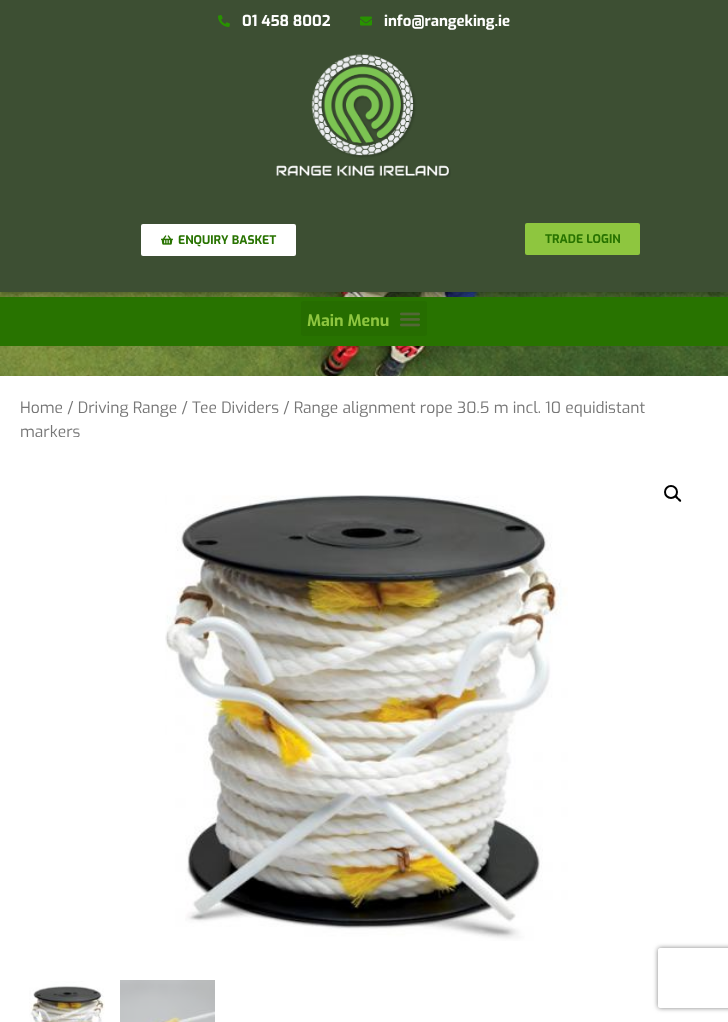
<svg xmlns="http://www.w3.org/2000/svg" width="728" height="1022">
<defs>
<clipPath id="clip1"><path d="M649 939h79v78h-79zm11 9h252c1 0 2 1 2 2v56c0 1-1 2-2 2h-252c-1 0-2-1-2-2v-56c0-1 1-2 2-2z" clip-rule="evenodd"/></clipPath>
</defs>
<rect width="100%" height="100%" fill="#fff"/>
<image x="0" y="292" width="728" height="84" href="media/1.png"/>
<rect width="728" height="292" fill="#00000080" filter="blur(5px)"/>
<rect width="728" height="292" fill="#3d4f33"/>
<image x="218" y="15" width="12" height="12" href="media/2.png"/>
<text x="242" y="26" style="font-family:Exo;font-size:15px;font-weight:bold;fill:#fff">01 458 8002</text>
<image x="360" y="16" width="12" height="10" href="media/3.png"/>
<text x="384" y="26" style="font-family:Exo;font-size:15px;font-weight:bold;fill:#fff">info@rangeking.ie</text>
<image x="276" y="54" width="175" height="124" href="media/4.png"/>
<rect x="141" y="224" width="155" height="32" rx="2" fill="#fff"/>
<image x="161" y="235" width="12" height="10" href="media/5.png"/>
<text x="178" y="244" style="font-family:Exo;font-size:12px;font-weight:bold;fill:#287300">ENQUIRY BASKET</text>
<rect x="525" y="223" width="115" height="32" rx="2" fill="#8ec63f"/>
<text x="545" y="243" style="font-family:Exo;font-size:12px;font-weight:bold;fill:#287300">TRADE LOGIN</text>
<rect y="297" width="728" height="49" fill="#287300"/>
<rect x="301" y="301" width="126" height="35" rx="3" fill="#266d00"/>
<text x="307" y="326" style="font-family:Exo;font-size:16px;font-weight:bold;fill:#8ec63f">Main Menu</text>
<image x="400" y="312" width="20" height="15" href="media/6.png"/>
<text x="20" y="413" style="font-family:Exo;font-size:15.65px;fill:#767676">Home / Driving Range / Tee Dividers / Range alignment rope 30.5 m incl. 10 equidistant</text>
<text x="20" y="437" style="font-family:Exo;font-size:15.65px;fill:#767676">markers</text>
<image x="165" y="495" width="403" height="446" href="media/7.png"/>
<circle cx="671" cy="492" r="6" fill="none" stroke="#000" stroke-width="2"/>
<path d="M675 496c1.5-1.5 3 1.5 3.5 2c1 .5 3.5 2 2.5 3.5c-1.5 1-3-1.5-3.5-2c-1-1-3.5-2.5-2.5-3.5z" fill="#000"/>
<image x="29" y="981" width="76" height="41" href="media/8.png"/>
<image x="120" y="980" width="95" height="42" href="media/9.png"/>
<g clip-path="url(#clip1)">
<rect x="658" y="948" width="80" height="60" rx="2" fill="#808080" filter="blur(2.5px)"/>
</g>
</svg>
